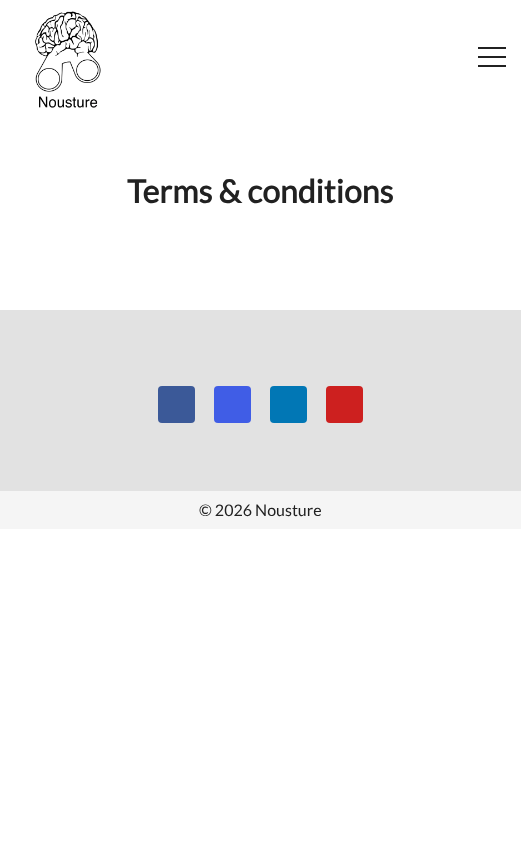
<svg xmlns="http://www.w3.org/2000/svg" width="521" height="844">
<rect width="100%" height="100%" fill="#fff"/>
<image x="35" y="11" width="66" height="97" href="media/1.png"/>
<rect x="478" y="47" width="28" height="2" fill="#212121"/>
<rect x="478" y="56" width="28" height="2" fill="#212121"/>
<rect x="478" y="65" width="28" height="2" fill="#212121"/>
<text x="127" y="203" style="font-family:Lato;font-size:32px;font-weight:bold;fill:#212121">Terms &amp; conditions</text>
<rect y="310" width="521" height="181" fill="#e2e2e2"/>
<rect x="158" y="386" width="37" height="37" rx="4" fill="#3b5998"/>
<rect x="214" y="386" width="37" height="37" rx="4" fill="#405de6"/>
<rect x="270" y="386" width="37" height="37" rx="4" fill="#0177b5"/>
<rect x="326" y="386" width="37" height="37" rx="4" fill="#cd201f"/>
<rect y="491" width="521" height="38" fill="#f5f5f5"/>
<text x="199" y="516" style="font-family:Lato;font-size:16px;fill:#212121">© 2026 Nousture</text>
</svg>
